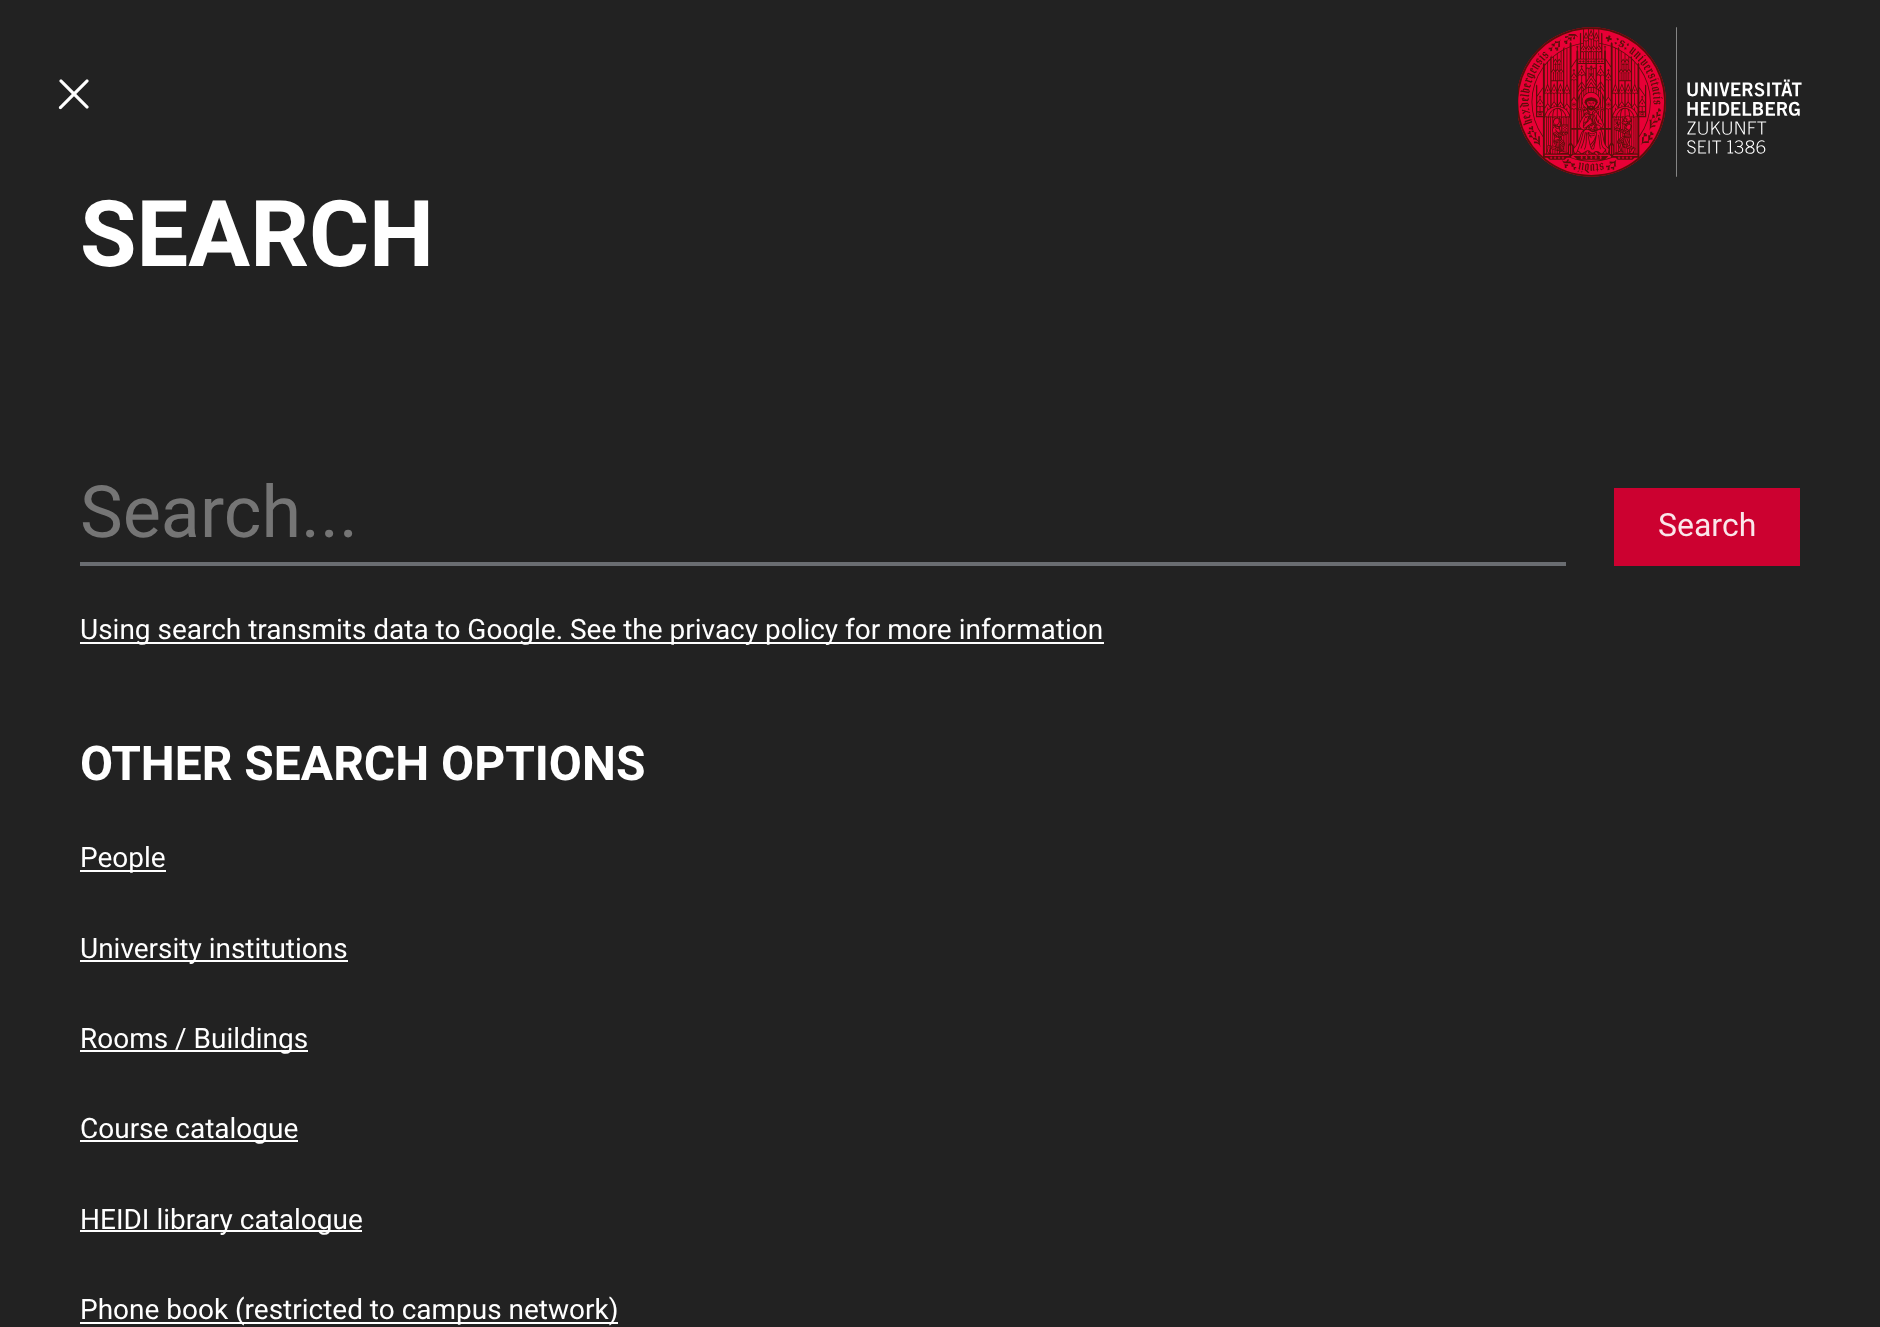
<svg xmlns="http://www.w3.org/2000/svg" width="1880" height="1327">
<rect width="100%" height="100%" fill="#222"/>
<image x="58" y="79" width="31" height="31" href="media/1.png"/>
<image x="1518" y="27" width="284" height="150" href="media/2.png"/>
<text x="80" y="266" style="font-family:Roboto;font-size:92px;font-weight:bold;fill:#fff">SEARCH</text>
<rect x="80" y="562" width="1486" height="4" fill="#6a6d71"/>
<text x="80" y="537" style="font-family:Roboto;font-size:72px;fill:#757575">Search...</text>
<rect x="1614" y="488" width="186" height="78" fill="#cc0130"/>
<text x="1658" y="536" style="font-family:Roboto;font-size:32px;fill:#fae6ea">Search</text>
<rect x="80" y="642" width="1024" height="2" fill="#fff"/>
<text x="80" y="639" style="font-family:Roboto;font-size:28px;fill:#fff">Using search transmits data to Google. See the privacy policy for more information</text>
<text x="80" y="780" style="font-family:Roboto;font-size:48px;font-weight:bold;fill:#fff">OTHER SEARCH OPTIONS</text>
<rect x="80" y="870" width="86" height="2" fill="#fff"/>
<text x="80" y="867" style="font-family:Roboto;font-size:28px;fill:#fff">People</text>
<rect x="80" y="960" width="268" height="2" fill="#fff"/>
<text x="80" y="958" style="font-family:Roboto;font-size:28px;fill:#fff">University institutions</text>
<rect x="80" y="1050" width="228" height="2" fill="#fff"/>
<text x="80" y="1048" style="font-family:Roboto;font-size:28px;fill:#fff">Rooms / Buildings</text>
<rect x="80" y="1140" width="218" height="2" fill="#fff"/>
<text x="80" y="1138" style="font-family:Roboto;font-size:28px;fill:#fff">Course catalogue</text>
<rect x="80" y="1230" width="282" height="2" fill="#fff"/>
<text x="80" y="1229" style="font-family:Roboto;font-size:28px;fill:#fff">HEIDI library catalogue</text>
<rect x="80" y="1322" width="538" height="2" fill="#fff"/>
<text x="80" y="1319" style="font-family:Roboto;font-size:28px;fill:#fff">Phone book (restricted to campus network)</text>
</svg>
